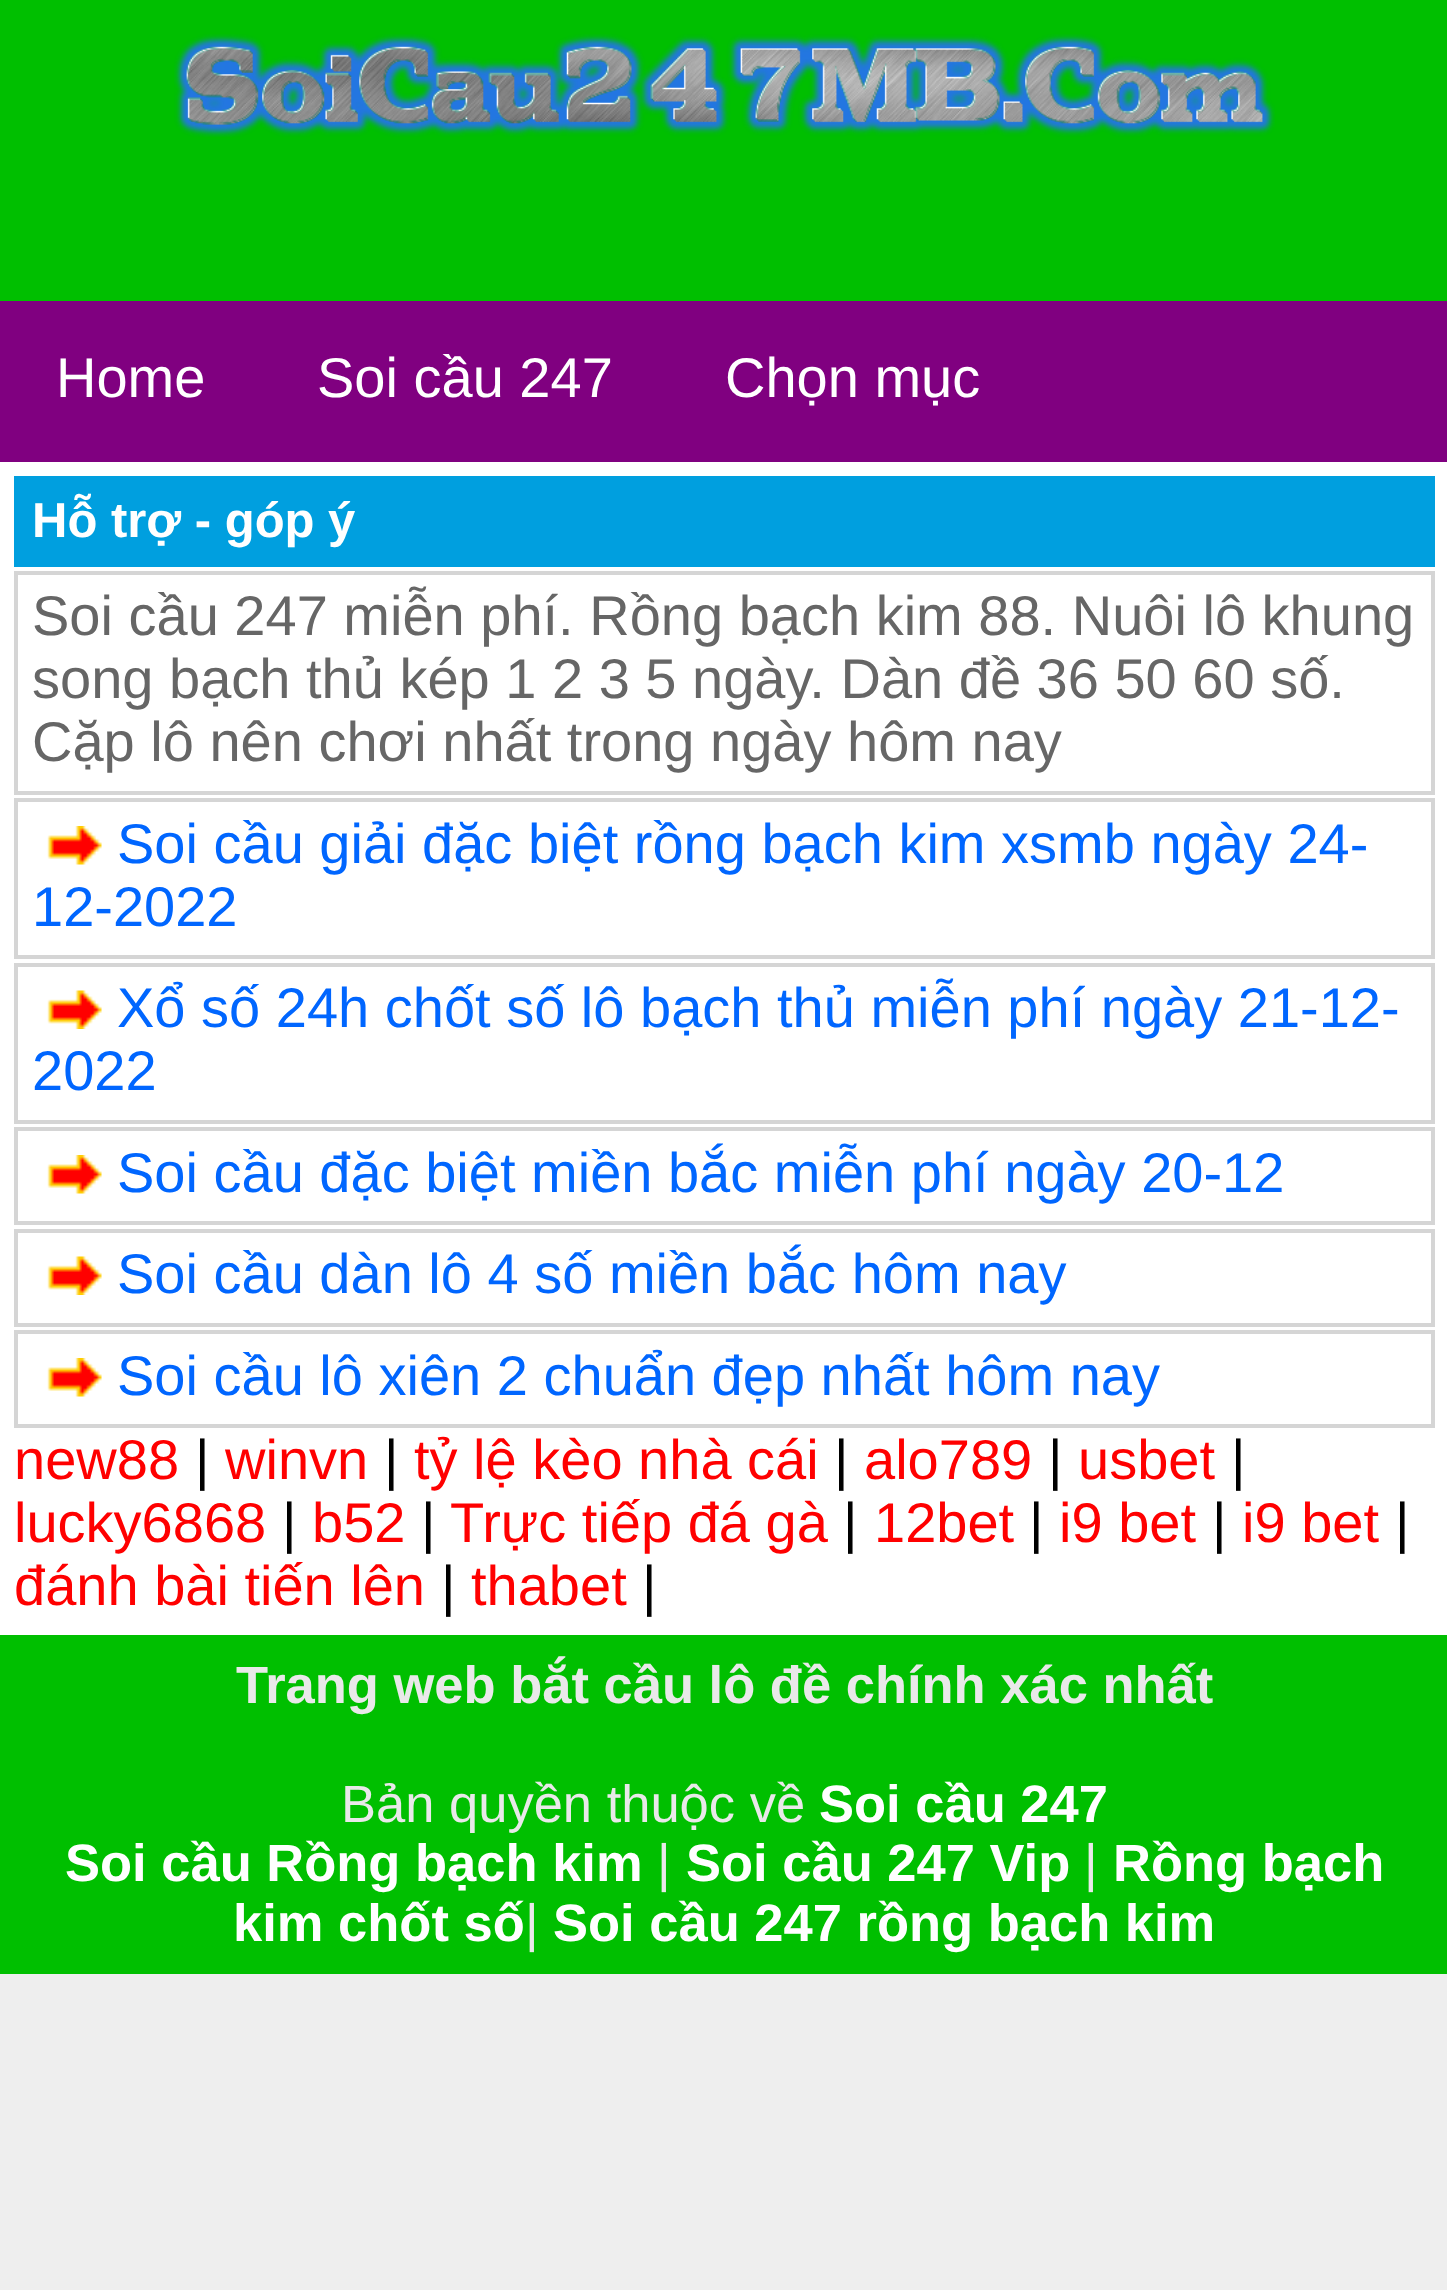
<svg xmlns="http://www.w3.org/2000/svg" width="1447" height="2290">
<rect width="100%" height="100%" fill="#eee"/>
<rect width="1447" height="301" fill="#00bf00"/>
<image x="174" y="34" width="1101" height="103" href="media/1.png"/>
<rect y="301" width="1447" height="161" fill="#800080"/>
<text x="56" y="397" style="font-family:Liberation Sans;font-size:56px;fill:#fff">Home</text>
<text x="317" y="397" style="font-family:Liberation Sans;font-size:56px;fill:#fff">Soi cầu 247</text>
<text x="725" y="397" style="font-family:Liberation Sans;font-size:56px;fill:#fff">Chọn mục</text>
<rect y="462" width="1447" height="1173" fill="#fff"/>
<rect x="14" y="476" width="1421" height="91" fill="#009fdf"/>
<text x="32" y="537" style="font-family:Liberation Sans;font-size:49px;font-weight:bold;fill:#fff">Hỗ trợ - góp ý</text>
<rect x="16" y="573" width="1417" height="220" fill="none" stroke="#d5d5d5" stroke-width="4"/>
<text x="32" y="635" style="font-family:Liberation Sans;font-size:56px;fill:#666">Soi cầu 247 miễn phí. Rồng bạch kim 88. Nuôi lô khung</text>
<text x="32" y="698" style="font-family:Liberation Sans;font-size:56px;fill:#666">song bạch thủ kép 1 2 3 5 ngày. Dàn đề 36 50 60 số.</text>
<text x="32" y="761" style="font-family:Liberation Sans;font-size:56px;fill:#666">Cặp lô nên chơi nhất trong ngày hôm nay</text>
<rect x="16" y="800" width="1417" height="157" fill="none" stroke="#d5d5d5" stroke-width="4"/>
<image x="47" y="826" width="55" height="39" href="media/2.png"/>
<text x="117" y="863" style="font-family:Liberation Sans;font-size:56px;fill:#06f">Soi cầu giải đặc biệt rồng bạch kim xsmb ngày 24-</text>
<text x="32" y="926" style="font-family:Liberation Sans;font-size:56px;fill:#06f">12-2022</text>
<rect x="16" y="965" width="1417" height="157" fill="none" stroke="#d5d5d5" stroke-width="4"/>
<image x="47" y="990" width="55" height="39" href="media/3.png"/>
<text x="117" y="1027" style="font-family:Liberation Sans;font-size:56px;fill:#06f">Xổ số 24h chốt số lô bạch thủ miễn phí ngày 21-12-</text>
<text x="32" y="1090" style="font-family:Liberation Sans;font-size:56px;fill:#06f">2022</text>
<rect x="16" y="1129" width="1417" height="94" fill="none" stroke="#d5d5d5" stroke-width="4"/>
<image x="47" y="1155" width="55" height="39" href="media/2.png"/>
<text x="117" y="1192" style="font-family:Liberation Sans;font-size:56px;fill:#06f">Soi cầu đặc biệt miền bắc miễn phí ngày 20-12</text>
<rect x="16" y="1231" width="1417" height="94" fill="none" stroke="#d5d5d5" stroke-width="4"/>
<image x="47" y="1256" width="55" height="39" href="media/3.png"/>
<text x="117" y="1293" style="font-family:Liberation Sans;font-size:56px;fill:#06f">Soi cầu dàn lô 4 số miền bắc hôm nay</text>
<rect x="16" y="1332" width="1417" height="94" fill="none" stroke="#d5d5d5" stroke-width="4"/>
<image x="47" y="1358" width="55" height="39" href="media/2.png"/>
<text x="117" y="1395" style="font-family:Liberation Sans;font-size:56px;fill:#06f">Soi cầu lô xiên 2 chuẩn đẹp nhất hôm nay</text>
<text x="14" y="1479" style="font-family:Liberation Sans;font-size:56px;fill:#f00">new88</text>
<text x="195" y="1479" style="font-family:Liberation Sans;font-size:56px;fill:#000">|</text>
<text x="225" y="1479" style="font-family:Liberation Sans;font-size:56px;fill:#f00">winvn</text>
<text x="384" y="1479" style="font-family:Liberation Sans;font-size:56px;fill:#000">|</text>
<text x="414" y="1479" style="font-family:Liberation Sans;font-size:56px;fill:#f00">tỷ lệ kèo nhà cái</text>
<text x="834" y="1479" style="font-family:Liberation Sans;font-size:56px;fill:#000">|</text>
<text x="864" y="1479" style="font-family:Liberation Sans;font-size:56px;fill:#f00">alo789</text>
<text x="1048" y="1479" style="font-family:Liberation Sans;font-size:56px;fill:#000">|</text>
<text x="1078" y="1479" style="font-family:Liberation Sans;font-size:56px;fill:#f00">usbet</text>
<text x="1231" y="1479" style="font-family:Liberation Sans;font-size:56px;fill:#000">|</text>
<text x="14" y="1542" style="font-family:Liberation Sans;font-size:56px;fill:#f00">lucky6868</text>
<text x="282" y="1542" style="font-family:Liberation Sans;font-size:56px;fill:#000">|</text>
<text x="312" y="1542" style="font-family:Liberation Sans;font-size:56px;fill:#f00">b52</text>
<text x="421" y="1542" style="font-family:Liberation Sans;font-size:56px;fill:#000">|</text>
<text x="450" y="1542" style="font-family:Liberation Sans;font-size:56px;fill:#f00">Trực tiếp đá gà</text>
<text x="843" y="1542" style="font-family:Liberation Sans;font-size:56px;fill:#000">|</text>
<text x="874" y="1542" style="font-family:Liberation Sans;font-size:56px;fill:#f00">12bet</text>
<text x="1029" y="1542" style="font-family:Liberation Sans;font-size:56px;fill:#000">|</text>
<text x="1059" y="1542" style="font-family:Liberation Sans;font-size:56px;fill:#f00">i9 bet</text>
<text x="1212" y="1542" style="font-family:Liberation Sans;font-size:56px;fill:#000">|</text>
<text x="1242" y="1542" style="font-family:Liberation Sans;font-size:56px;fill:#f00">i9 bet</text>
<text x="1395" y="1542" style="font-family:Liberation Sans;font-size:56px;fill:#000">|</text>
<text x="14" y="1605" style="font-family:Liberation Sans;font-size:56px;fill:#f00">đánh bài tiến lên</text>
<text x="441" y="1605" style="font-family:Liberation Sans;font-size:56px;fill:#000">|</text>
<text x="471" y="1605" style="font-family:Liberation Sans;font-size:56px;fill:#f00">thabet</text>
<text x="642" y="1605" style="font-family:Liberation Sans;font-size:56px;fill:#000">|</text>
<rect y="1635" width="1447" height="339" fill="#00bf00"/>
<text x="236" y="1703" style="font-family:Liberation Sans;font-size:52.5px;font-weight:bold;fill:#e9e9e9">Trang web bắt cầu lô đề chính xác nhất</text>
<text x="341" y="1822" style="font-family:Liberation Sans;font-size:52.5px;fill:#e9e9e9">Bản quyền thuộc về</text>
<text x="819" y="1822" style="font-family:Liberation Sans;font-size:52.5px;font-weight:bold;fill:#fff">Soi cầu 247</text>
<text x="65" y="1881" style="font-family:Liberation Sans;font-size:52.5px;font-weight:bold;fill:#fff">Soi cầu Rồng bạch kim</text>
<text x="657" y="1881" style="font-family:Liberation Sans;font-size:52.5px;fill:#e9e9e9">|</text>
<text x="686" y="1881" style="font-family:Liberation Sans;font-size:52.5px;font-weight:bold;fill:#fff">Soi cầu 247 Vip</text>
<text x="1084" y="1881" style="font-family:Liberation Sans;font-size:52.5px;fill:#e9e9e9">|</text>
<text x="1113" y="1881" style="font-family:Liberation Sans;font-size:52.5px;font-weight:bold;fill:#fff">Rồng bạch</text>
<text x="233" y="1941" style="font-family:Liberation Sans;font-size:52.5px;font-weight:bold;fill:#fff">kim chốt số</text>
<text x="525" y="1941" style="font-family:Liberation Sans;font-size:52.5px;fill:#e9e9e9">|</text>
<text x="553" y="1941" style="font-family:Liberation Sans;font-size:52.5px;font-weight:bold;fill:#fff">Soi cầu 247 rồng bạch kim</text>
</svg>
